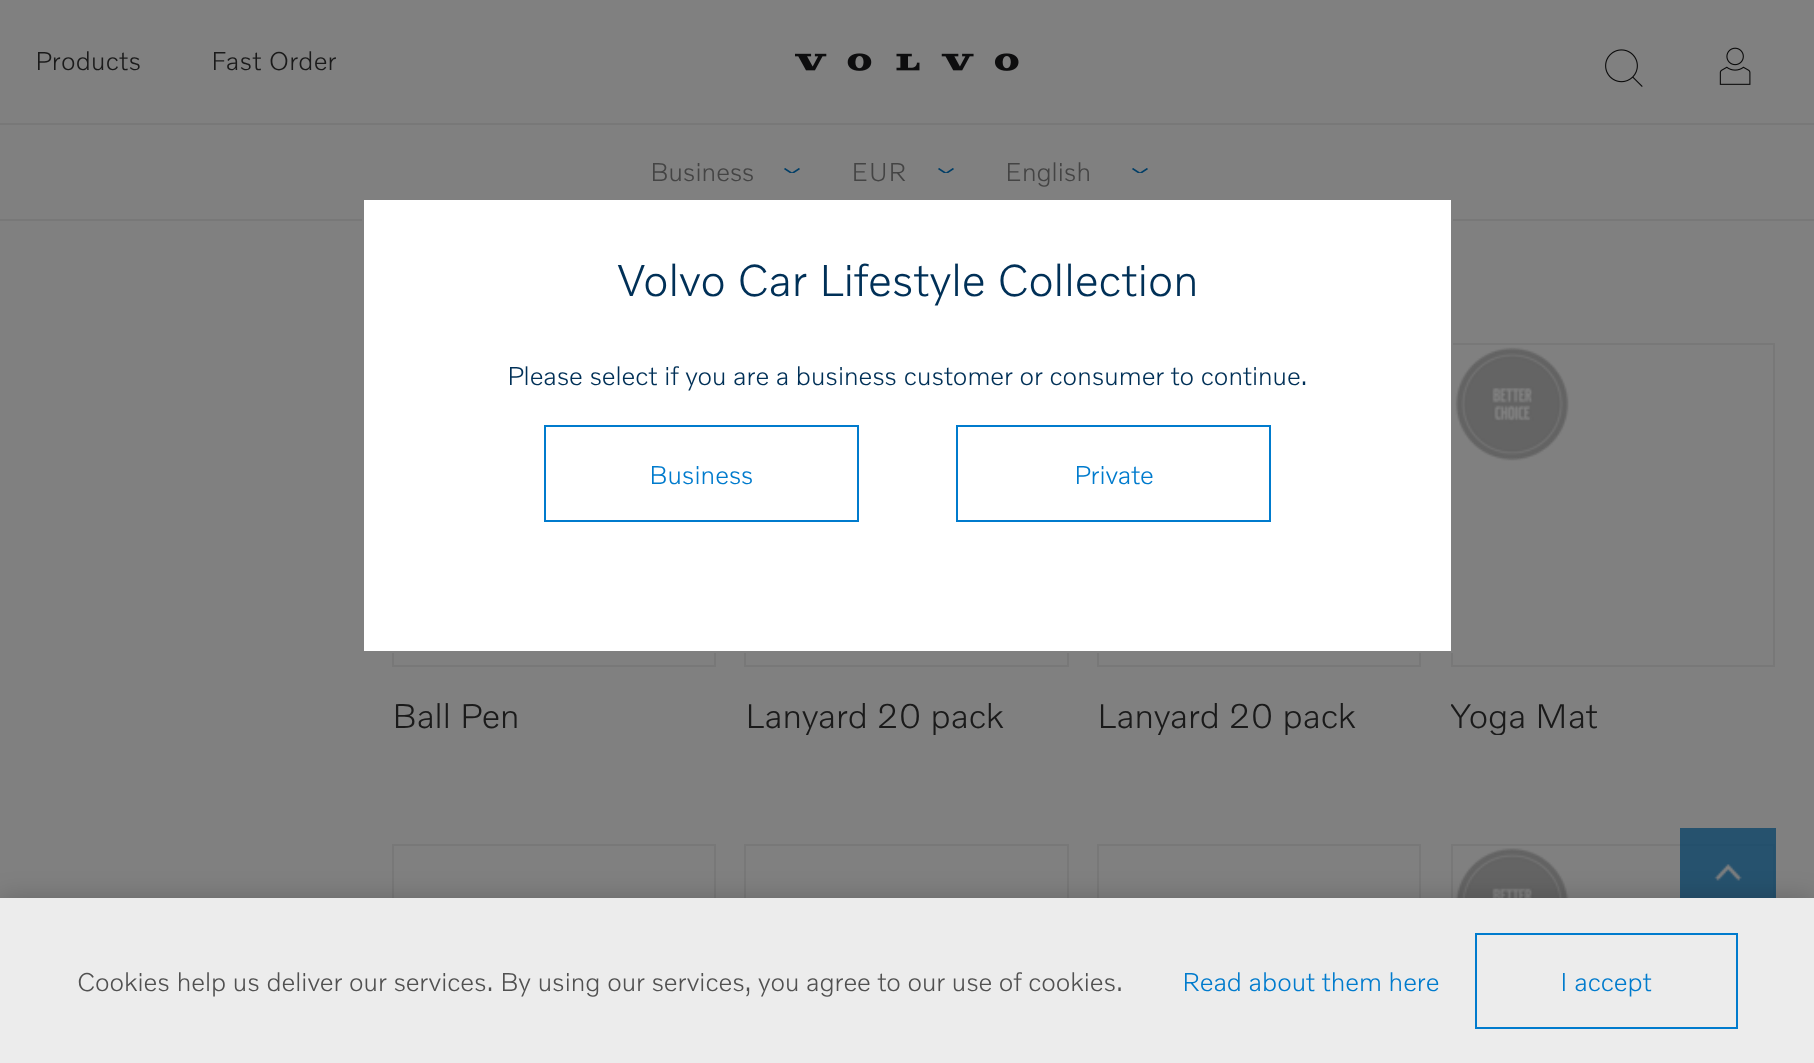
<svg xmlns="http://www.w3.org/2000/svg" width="1814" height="1063">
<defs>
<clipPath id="clip1"><rect x="784" y="168" width="16" height="5"/></clipPath>
<clipPath id="clip2"><rect x="938" y="168" width="16" height="5"/></clipPath>
<clipPath id="clip3"><rect x="1132" y="168" width="16" height="5"/></clipPath>
<clipPath id="clip4"><rect x="744" y="693" width="325" height="42"/></clipPath>
<clipPath id="clip5"><rect x="1097" y="693" width="324" height="42"/></clipPath>
<clipPath id="clip6"><rect x="1451" y="693" width="324" height="42"/></clipPath>
</defs>
<rect width="100%" height="100%" fill="#808080"/>
<text x="35" y="70" style="font-family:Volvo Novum;font-size:26.25px;font-weight:300;letter-spacing:0.25px;fill:#1a1a1a">Products</text>
<text x="211" y="70" style="font-family:Volvo Novum;font-size:26.25px;font-weight:300;letter-spacing:0.25px;fill:#1a1a1a">Fast Order</text>
<image x="795" y="53" width="224" height="18" href="media/1.png"/>
<image x="1605" y="49" width="38" height="38" href="media/2.png"/>
<image x="1719" y="47" width="32" height="38" href="media/3.png"/>
<rect y="123" width="1814" height="2" fill="#787878"/>
<rect y="219" width="1814" height="2" fill="#787878"/>
<g clip-path="url(#clip1)">
<path d="M784.5 168.5l7.5 5l7.5-5" fill="none" stroke="#003e67" stroke-width="1.6"/>
</g>
<text x="650" y="181" style="font-family:Volvo Novum;font-size:26.25px;font-weight:300;fill:#444">Business</text>
<g clip-path="url(#clip2)">
<path d="M938.5 168.5l7.5 5l7.5-5" fill="none" stroke="#003e67" stroke-width="1.6"/>
</g>
<text x="851" y="181" style="font-family:Volvo Novum;font-size:26.25px;font-weight:300;fill:#444">EUR</text>
<g clip-path="url(#clip3)">
<path d="M1132.5 168.5l7.5 5l7.5-5" fill="none" stroke="#003e67" stroke-width="1.6"/>
</g>
<text x="1005" y="181" style="font-family:Volvo Novum;font-size:26.25px;font-weight:300;fill:#444">English</text>
<rect x="393" y="344" width="322" height="322" fill="none" stroke="#787878" stroke-width="2"/>
<rect x="745" y="344" width="323" height="322" fill="none" stroke="#787878" stroke-width="2"/>
<rect x="1098" y="344" width="322" height="322" fill="none" stroke="#787878" stroke-width="2"/>
<rect x="1452" y="344" width="322" height="322" fill="none" stroke="#787878" stroke-width="2"/>
<rect x="363" y="199" width="1089" height="453" fill="#fff" stroke="#808080" stroke-width="2"/>
<text x="617" y="296" style="font-family:Volvo Novum;font-size:45.5px;font-weight:300;fill:#003057">Volvo Car Lifestyle Collection</text>
<text x="507" y="385" style="font-family:Volvo Novum;font-size:26.25px;font-weight:300;fill:#003057">Please select if you are a business customer or consumer to continue.</text>
<rect x="545" y="426" width="313" height="95" fill="none" stroke="#007bcd" stroke-width="2"/>
<text x="649" y="484" style="font-family:Volvo Novum;font-size:26.25px;font-weight:300;fill:#007bcd">Business</text>
<rect x="957" y="426" width="313" height="95" fill="none" stroke="#007bcd" stroke-width="2"/>
<text x="1074" y="484" style="font-family:Volvo Novum;font-size:26.25px;font-weight:300;fill:#007bcd">Private</text>
<text x="392" y="728" style="font-family:Volvo Novum;font-size:35px;font-weight:300;fill:#1a1a1a">Ball Pen</text>
<g clip-path="url(#clip4)">
<text x="745" y="728" style="font-family:Volvo Novum;font-size:35px;font-weight:300;fill:#1a1a1a">Lanyard 20 pack</text>
</g>
<g clip-path="url(#clip5)">
<text x="1097" y="728" style="font-family:Volvo Novum;font-size:35px;font-weight:300;fill:#1a1a1a">Lanyard 20 pack</text>
</g>
<image x="1455" y="347" width="114" height="114" href="media/4.png"/>
<g clip-path="url(#clip6)">
<text x="1450" y="728" style="font-family:Volvo Novum;font-size:35px;font-weight:300;fill:#1a1a1a">Yoga Mat</text>
</g>
<rect x="393" y="845" width="322" height="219" fill="none" stroke="#787878" stroke-width="2"/>
<rect x="745" y="845" width="323" height="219" fill="none" stroke="#787878" stroke-width="2"/>
<rect x="1098" y="845" width="322" height="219" fill="none" stroke="#787878" stroke-width="2"/>
<rect x="1452" y="845" width="322" height="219" fill="none" stroke="#787878" stroke-width="2"/>
<image x="1455" y="848" width="114" height="50" href="media/5.png"/>
<rect x="1680" y="828" width="96" height="70" fill="#003e67b3"/>
<image x="1714" y="864" width="28" height="17" href="media/6.png"/>
<rect y="898" width="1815" height="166" fill="#00000033" filter="blur(13px)"/>
<rect y="898" width="1814" height="165" fill="#ececec"/>
<text x="77" y="991" style="font-family:Volvo Novum;font-size:26.25px;font-weight:300;fill:#515151">Cookies help us deliver our services. By using our services, you agree to our use of cookies.</text>
<text x="1182" y="991" style="font-family:Volvo Novum;font-size:26.25px;font-weight:300;fill:#007bcd">Read about them here</text>
<rect x="1476" y="934" width="261" height="94" fill="none" stroke="#007bcd" stroke-width="2"/>
<text x="1560" y="991" style="font-family:Volvo Novum;font-size:26.25px;font-weight:300;fill:#007bcd">I accept</text>
</svg>
